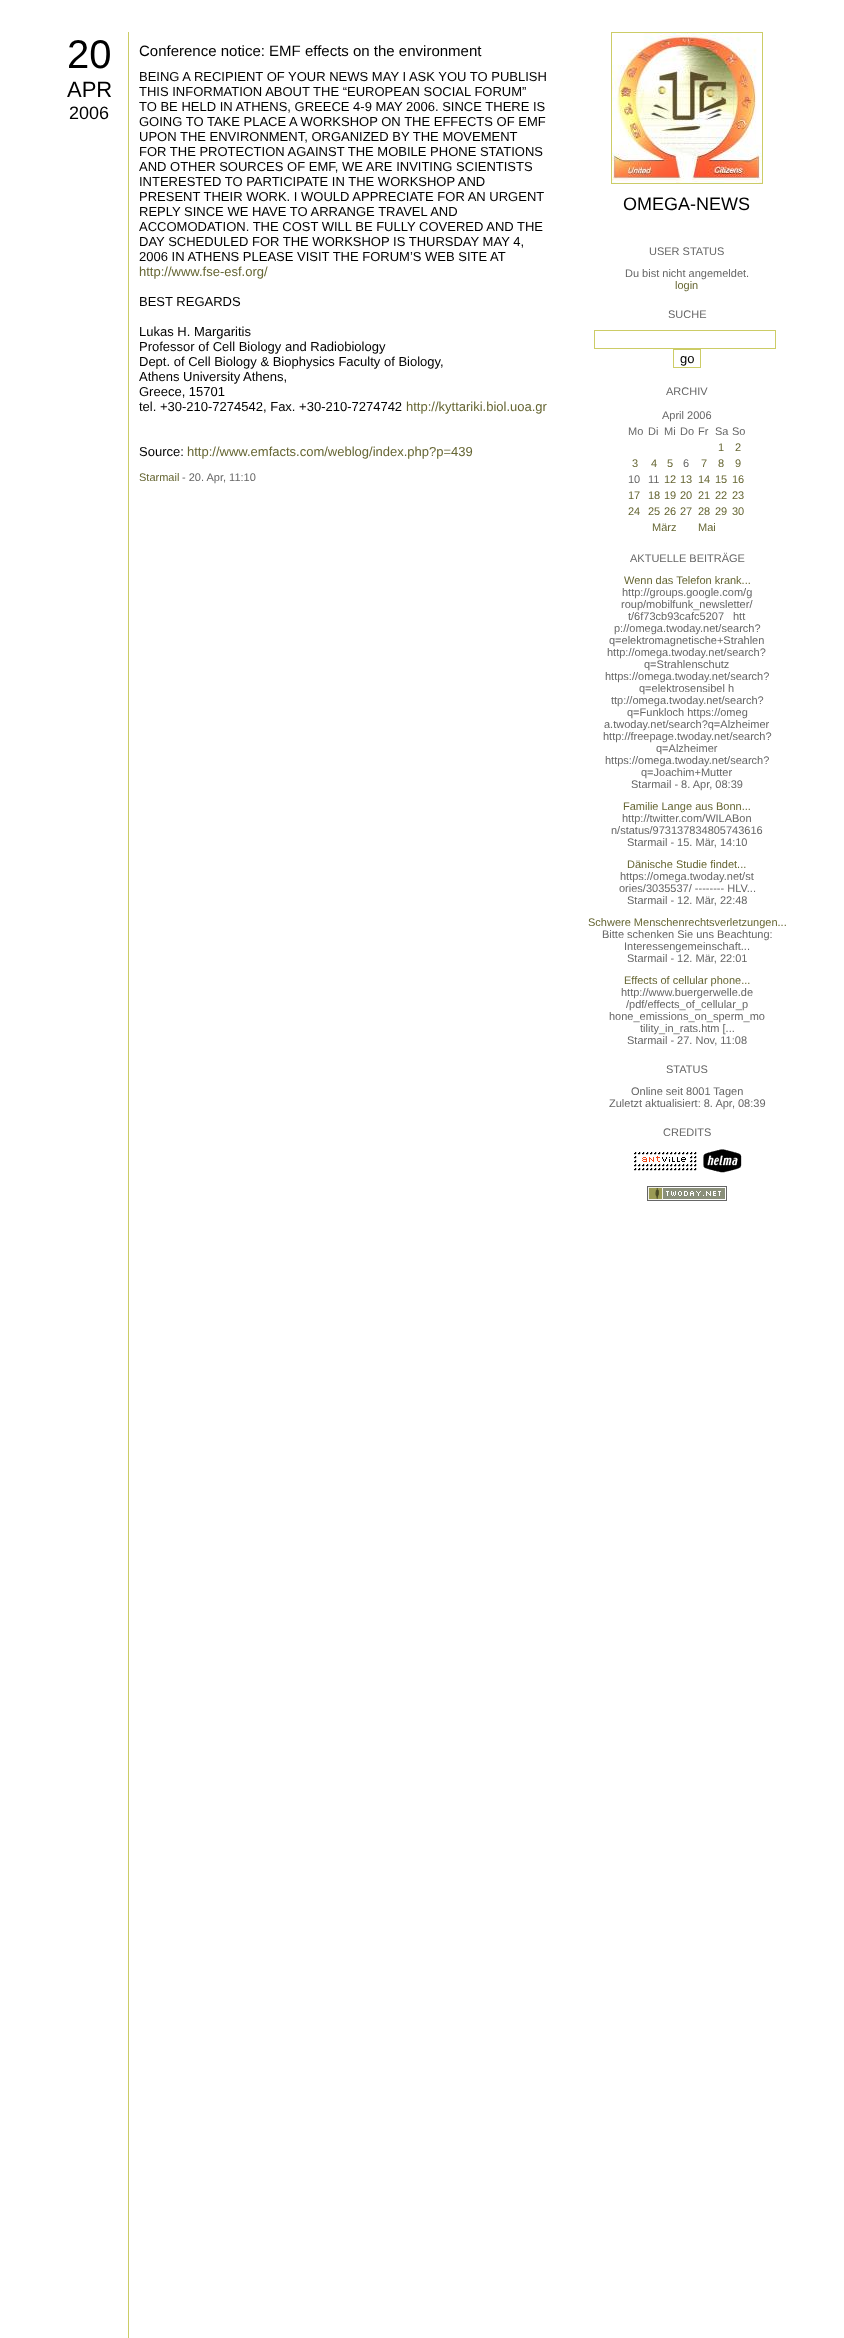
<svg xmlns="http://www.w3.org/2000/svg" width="844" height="2338">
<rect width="100%" height="100%" fill="#fff"/>
<text x="67" y="68" style="font-family:Liberation Sans;font-size:40px;fill:#000">20</text>
<text x="67" y="97" style="font-family:Liberation Sans;font-size:22px;fill:#000">APR</text>
<text x="69" y="119" style="font-family:Liberation Sans;font-size:18px;fill:#000">2006</text>
<rect x="128" y="32" width="1" height="2306" fill="#cc6"/>
<text x="139" y="56" style="font-family:Liberation Sans;font-size:15px;fill:#000">Conference notice: EMF effects on the environment</text>
<text x="139" y="81" style="font-family:Liberation Sans;font-size:13px;fill:#000">BEING A RECIPIENT OF YOUR NEWS MAY I ASK YOU TO PUBLISH</text>
<text x="139" y="96" style="font-family:Liberation Sans;font-size:13px;fill:#000">THIS INFORMATION ABOUT THE “EUROPEAN SOCIAL FORUM”</text>
<text x="139" y="111" style="font-family:Liberation Sans;font-size:13px;fill:#000">TO BE HELD IN ATHENS, GREECE 4-9 MAY 2006. SINCE THERE IS</text>
<text x="139" y="126" style="font-family:Liberation Sans;font-size:13px;fill:#000">GOING TO TAKE PLACE A WORKSHOP ON THE EFFECTS OF EMF</text>
<text x="139" y="141" style="font-family:Liberation Sans;font-size:13px;fill:#000">UPON THE ENVIRONMENT, ORGANIZED BY THE MOVEMENT</text>
<text x="139" y="156" style="font-family:Liberation Sans;font-size:13px;fill:#000">FOR THE PROTECTION AGAINST THE MOBILE PHONE STATIONS</text>
<text x="139" y="171" style="font-family:Liberation Sans;font-size:13px;fill:#000">AND OTHER SOURCES OF EMF, WE ARE INVITING SCIENTISTS</text>
<text x="139" y="186" style="font-family:Liberation Sans;font-size:13px;fill:#000">INTERESTED TO PARTICIPATE IN THE WORKSHOP AND</text>
<text x="139" y="201" style="font-family:Liberation Sans;font-size:13px;fill:#000">PRESENT THEIR WORK. I WOULD APPRECIATE FOR AN URGENT</text>
<text x="139" y="216" style="font-family:Liberation Sans;font-size:13px;fill:#000">REPLY SINCE WE HAVE TO ARRANGE TRAVEL AND</text>
<text x="139" y="231" style="font-family:Liberation Sans;font-size:13px;fill:#000">ACCOMODATION. THE COST WILL BE FULLY COVERED AND THE</text>
<text x="139" y="246" style="font-family:Liberation Sans;font-size:13px;fill:#000">DAY SCHEDULED FOR THE WORKSHOP IS THURSDAY MAY 4,</text>
<text x="139" y="261" style="font-family:Liberation Sans;font-size:13px;fill:#000">2006 IN ATHENS PLEASE VISIT THE FORUM’S WEB SITE AT</text>
<text x="139" y="276" style="font-family:Liberation Sans;font-size:13px;fill:#663">http://www.fse-esf.org/</text>
<text x="139" y="306" style="font-family:Liberation Sans;font-size:13px;fill:#000">BEST REGARDS</text>
<text x="139" y="336" style="font-family:Liberation Sans;font-size:13px;fill:#000">Lukas H. Margaritis</text>
<text x="139" y="351" style="font-family:Liberation Sans;font-size:13px;fill:#000">Professor of Cell Biology and Radiobiology</text>
<text x="139" y="366" style="font-family:Liberation Sans;font-size:13px;fill:#000">Dept. of Cell Biology &amp; Biophysics Faculty of Biology,</text>
<text x="139" y="381" style="font-family:Liberation Sans;font-size:13px;fill:#000">Athens University Athens,</text>
<text x="139" y="396" style="font-family:Liberation Sans;font-size:13px;fill:#000">Greece, 15701</text>
<text x="139" y="411" style="font-family:Liberation Sans;font-size:13px;fill:#000">tel. +30-210-7274542, Fax. +30-210-7274742</text>
<text x="406" y="411" style="font-family:Liberation Sans;font-size:13px;fill:#663">http://kyttariki.biol.uoa.gr</text>
<text x="139" y="456" style="font-family:Liberation Sans;font-size:13px;fill:#000">Source:</text>
<text x="187" y="456" style="font-family:Liberation Sans;font-size:13px;fill:#663">http://www.emfacts.com/weblog/index.php?p=439</text>
<text x="139" y="481" style="font-family:Liberation Sans;font-size:11px;fill:#663">Starmail</text>
<text x="182" y="481" style="font-family:Liberation Sans;font-size:11px;fill:#666">- 20. Apr, 11:10</text>
<rect x="611.5" y="32.5" width="151" height="151" fill="none" stroke="#cc6"/>
<image x="612" y="33" width="150" height="150" href="media/1.png"/>
<text x="623" y="210" style="font-family:Liberation Sans;font-size:18px;fill:#000">OMEGA-NEWS</text>
<text x="649" y="255" style="font-family:Liberation Sans;font-size:11px;fill:#666">USER STATUS</text>
<text x="625" y="277" style="font-family:Liberation Sans;font-size:11px;fill:#666">Du bist nicht angemeldet.</text>
<text x="675" y="289" style="font-family:Liberation Sans;font-size:11px;fill:#663">login</text>
<text x="668" y="318" style="font-family:Liberation Sans;font-size:11px;fill:#666">SUCHE</text>
<rect x="594.5" y="330.5" width="181" height="18" fill="none" stroke="#cc6"/>
<rect x="673.5" y="349.5" width="27" height="18" fill="none" stroke="#cc6"/>
<text x="680" y="363" style="font-family:Liberation Sans;font-size:13px;fill:#000">go</text>
<text x="666" y="395" style="font-family:Liberation Sans;font-size:11px;fill:#666">ARCHIV</text>
<text x="662" y="419" style="font-family:Liberation Sans;font-size:11px;fill:#666">April 2006</text>
<text x="628" y="435" style="font-family:Liberation Sans;font-size:11px;fill:#666">Mo</text>
<text x="648" y="435" style="font-family:Liberation Sans;font-size:11px;fill:#666">Di</text>
<text x="664" y="435" style="font-family:Liberation Sans;font-size:11px;fill:#666">Mi</text>
<text x="680" y="435" style="font-family:Liberation Sans;font-size:11px;fill:#666">Do</text>
<text x="698" y="435" style="font-family:Liberation Sans;font-size:11px;fill:#666">Fr</text>
<text x="715" y="435" style="font-family:Liberation Sans;font-size:11px;fill:#666">Sa</text>
<text x="732" y="435" style="font-family:Liberation Sans;font-size:11px;fill:#666">So</text>
<text x="718" y="451" style="font-family:Liberation Sans;font-size:11px;fill:#663">1</text>
<text x="735" y="451" style="font-family:Liberation Sans;font-size:11px;fill:#663">2</text>
<text x="632" y="467" style="font-family:Liberation Sans;font-size:11px;fill:#663">3</text>
<text x="651" y="467" style="font-family:Liberation Sans;font-size:11px;fill:#663">4</text>
<text x="667" y="467" style="font-family:Liberation Sans;font-size:11px;fill:#663">5</text>
<text x="683" y="467" style="font-family:Liberation Sans;font-size:11px;fill:#666">6</text>
<text x="701" y="467" style="font-family:Liberation Sans;font-size:11px;fill:#663">7</text>
<text x="718" y="467" style="font-family:Liberation Sans;font-size:11px;fill:#663">8</text>
<text x="735" y="467" style="font-family:Liberation Sans;font-size:11px;fill:#663">9</text>
<text x="628" y="483" style="font-family:Liberation Sans;font-size:11px;fill:#666">10</text>
<text x="648" y="483" style="font-family:Liberation Sans;font-size:11px;fill:#666">11</text>
<text x="664" y="483" style="font-family:Liberation Sans;font-size:11px;fill:#663">12</text>
<text x="680" y="483" style="font-family:Liberation Sans;font-size:11px;fill:#663">13</text>
<text x="698" y="483" style="font-family:Liberation Sans;font-size:11px;fill:#663">14</text>
<text x="715" y="483" style="font-family:Liberation Sans;font-size:11px;fill:#663">15</text>
<text x="732" y="483" style="font-family:Liberation Sans;font-size:11px;fill:#663">16</text>
<text x="628" y="499" style="font-family:Liberation Sans;font-size:11px;fill:#663">17</text>
<text x="648" y="499" style="font-family:Liberation Sans;font-size:11px;fill:#663">18</text>
<text x="664" y="499" style="font-family:Liberation Sans;font-size:11px;fill:#663">19</text>
<text x="680" y="499" style="font-family:Liberation Sans;font-size:11px;fill:#663">20</text>
<text x="698" y="499" style="font-family:Liberation Sans;font-size:11px;fill:#663">21</text>
<text x="715" y="499" style="font-family:Liberation Sans;font-size:11px;fill:#663">22</text>
<text x="732" y="499" style="font-family:Liberation Sans;font-size:11px;fill:#663">23</text>
<text x="628" y="515" style="font-family:Liberation Sans;font-size:11px;fill:#663">24</text>
<text x="648" y="515" style="font-family:Liberation Sans;font-size:11px;fill:#663">25</text>
<text x="664" y="515" style="font-family:Liberation Sans;font-size:11px;fill:#663">26</text>
<text x="680" y="515" style="font-family:Liberation Sans;font-size:11px;fill:#663">27</text>
<text x="698" y="515" style="font-family:Liberation Sans;font-size:11px;fill:#663">28</text>
<text x="715" y="515" style="font-family:Liberation Sans;font-size:11px;fill:#663">29</text>
<text x="732" y="515" style="font-family:Liberation Sans;font-size:11px;fill:#663">30</text>
<text x="652" y="531" style="font-family:Liberation Sans;font-size:11px;fill:#663">März</text>
<text x="698" y="531" style="font-family:Liberation Sans;font-size:11px;fill:#663">Mai</text>
<text x="630" y="562" style="font-family:Liberation Sans;font-size:11px;fill:#666">AKTUELLE BEITRÄGE</text>
<text x="624" y="584" style="font-family:Liberation Sans;font-size:11px;fill:#663">Wenn das Telefon krank...</text>
<text x="622" y="596" style="font-family:Liberation Sans;font-size:11px;fill:#666">http://groups.google.com/g</text>
<text x="621" y="608" style="font-family:Liberation Sans;font-size:11px;fill:#666">roup/mobilfunk_newsletter/</text>
<text x="628" y="620" style="font-family:Liberation Sans;font-size:11px;fill:#666">t/6f73cb93cafc5207</text>
<text x="733" y="620" style="font-family:Liberation Sans;font-size:11px;fill:#666">htt</text>
<text x="614" y="632" style="font-family:Liberation Sans;font-size:11px;fill:#666">p://omega.twoday.net/search?</text>
<text x="609" y="644" style="font-family:Liberation Sans;font-size:11px;fill:#666">q=elektromagnetische+Strahlen</text>
<text x="607" y="656" style="font-family:Liberation Sans;font-size:11px;fill:#666">http://omega.twoday.net/search?</text>
<text x="644" y="668" style="font-family:Liberation Sans;font-size:11px;fill:#666">q=Strahlenschutz</text>
<text x="605" y="680" style="font-family:Liberation Sans;font-size:11px;fill:#666">https://omega.twoday.net/search?</text>
<text x="639" y="692" style="font-family:Liberation Sans;font-size:11px;fill:#666">q=elektrosensibel h</text>
<text x="611" y="704" style="font-family:Liberation Sans;font-size:11px;fill:#666">ttp://omega.twoday.net/search?</text>
<text x="627" y="716" style="font-family:Liberation Sans;font-size:11px;fill:#666">q=Funkloch https://omeg</text>
<text x="604" y="728" style="font-family:Liberation Sans;font-size:11px;fill:#666">a.twoday.net/search?q=Alzheimer</text>
<text x="603" y="740" style="font-family:Liberation Sans;font-size:11px;fill:#666">http://freepage.twoday.net/search?</text>
<text x="656" y="752" style="font-family:Liberation Sans;font-size:11px;fill:#666">q=Alzheimer</text>
<text x="605" y="764" style="font-family:Liberation Sans;font-size:11px;fill:#666">https://omega.twoday.net/search?</text>
<text x="641" y="776" style="font-family:Liberation Sans;font-size:11px;fill:#666">q=Joachim+Mutter</text>
<text x="631" y="788" style="font-family:Liberation Sans;font-size:11px;fill:#666">Starmail - 8. Apr, 08:39</text>
<text x="623" y="810" style="font-family:Liberation Sans;font-size:11px;fill:#663">Familie Lange aus Bonn...</text>
<text x="622" y="822" style="font-family:Liberation Sans;font-size:11px;fill:#666">http://twitter.com/WILABon</text>
<text x="611" y="834" style="font-family:Liberation Sans;font-size:11px;fill:#666">n/status/973137834805743616</text>
<text x="627" y="846" style="font-family:Liberation Sans;font-size:11px;fill:#666">Starmail - 15. Mär, 14:10</text>
<text x="627" y="868" style="font-family:Liberation Sans;font-size:11px;fill:#663">Dänische Studie findet...</text>
<text x="620" y="880" style="font-family:Liberation Sans;font-size:11px;fill:#666">https://omega.twoday.net/st</text>
<text x="619" y="892" style="font-family:Liberation Sans;font-size:11px;fill:#666">ories/3035537/ -------- HLV...</text>
<text x="627" y="904" style="font-family:Liberation Sans;font-size:11px;fill:#666">Starmail - 12. Mär, 22:48</text>
<text x="588" y="926" style="font-family:Liberation Sans;font-size:11px;fill:#663">Schwere Menschenrechtsverletzungen...</text>
<text x="602" y="938" style="font-family:Liberation Sans;font-size:11px;fill:#666">Bitte schenken Sie uns Beachtung:</text>
<text x="624" y="950" style="font-family:Liberation Sans;font-size:11px;fill:#666">Interessengemeinschaft...</text>
<text x="627" y="962" style="font-family:Liberation Sans;font-size:11px;fill:#666">Starmail - 12. Mär, 22:01</text>
<text x="624" y="984" style="font-family:Liberation Sans;font-size:11px;fill:#663">Effects of cellular phone...</text>
<text x="621" y="996" style="font-family:Liberation Sans;font-size:11px;fill:#666">http://www.buergerwelle.de</text>
<text x="626" y="1008" style="font-family:Liberation Sans;font-size:11px;fill:#666">/pdf/effects_of_cellular_p</text>
<text x="609" y="1020" style="font-family:Liberation Sans;font-size:11px;fill:#666">hone_emissions_on_sperm_mo</text>
<text x="640" y="1032" style="font-family:Liberation Sans;font-size:11px;fill:#666">tility_in_rats.htm [...</text>
<text x="627" y="1044" style="font-family:Liberation Sans;font-size:11px;fill:#666">Starmail - 27. Nov, 11:08</text>
<text x="666" y="1073" style="font-family:Liberation Sans;font-size:11px;fill:#666">STATUS</text>
<text x="631" y="1095" style="font-family:Liberation Sans;font-size:11px;fill:#666">Online seit 8001 Tagen</text>
<text x="609" y="1107" style="font-family:Liberation Sans;font-size:11px;fill:#666">Zuletzt aktualisiert: 8. Apr, 08:39</text>
<text x="663" y="1136" style="font-family:Liberation Sans;font-size:11px;fill:#666">CREDITS</text>
<image x="634" y="1152" width="63" height="19" href="media/2.png"/>
<image x="703" y="1149" width="39" height="24" href="media/3.png"/>
<image x="647" y="1186" width="80" height="15" href="media/4.png"/>
</svg>
